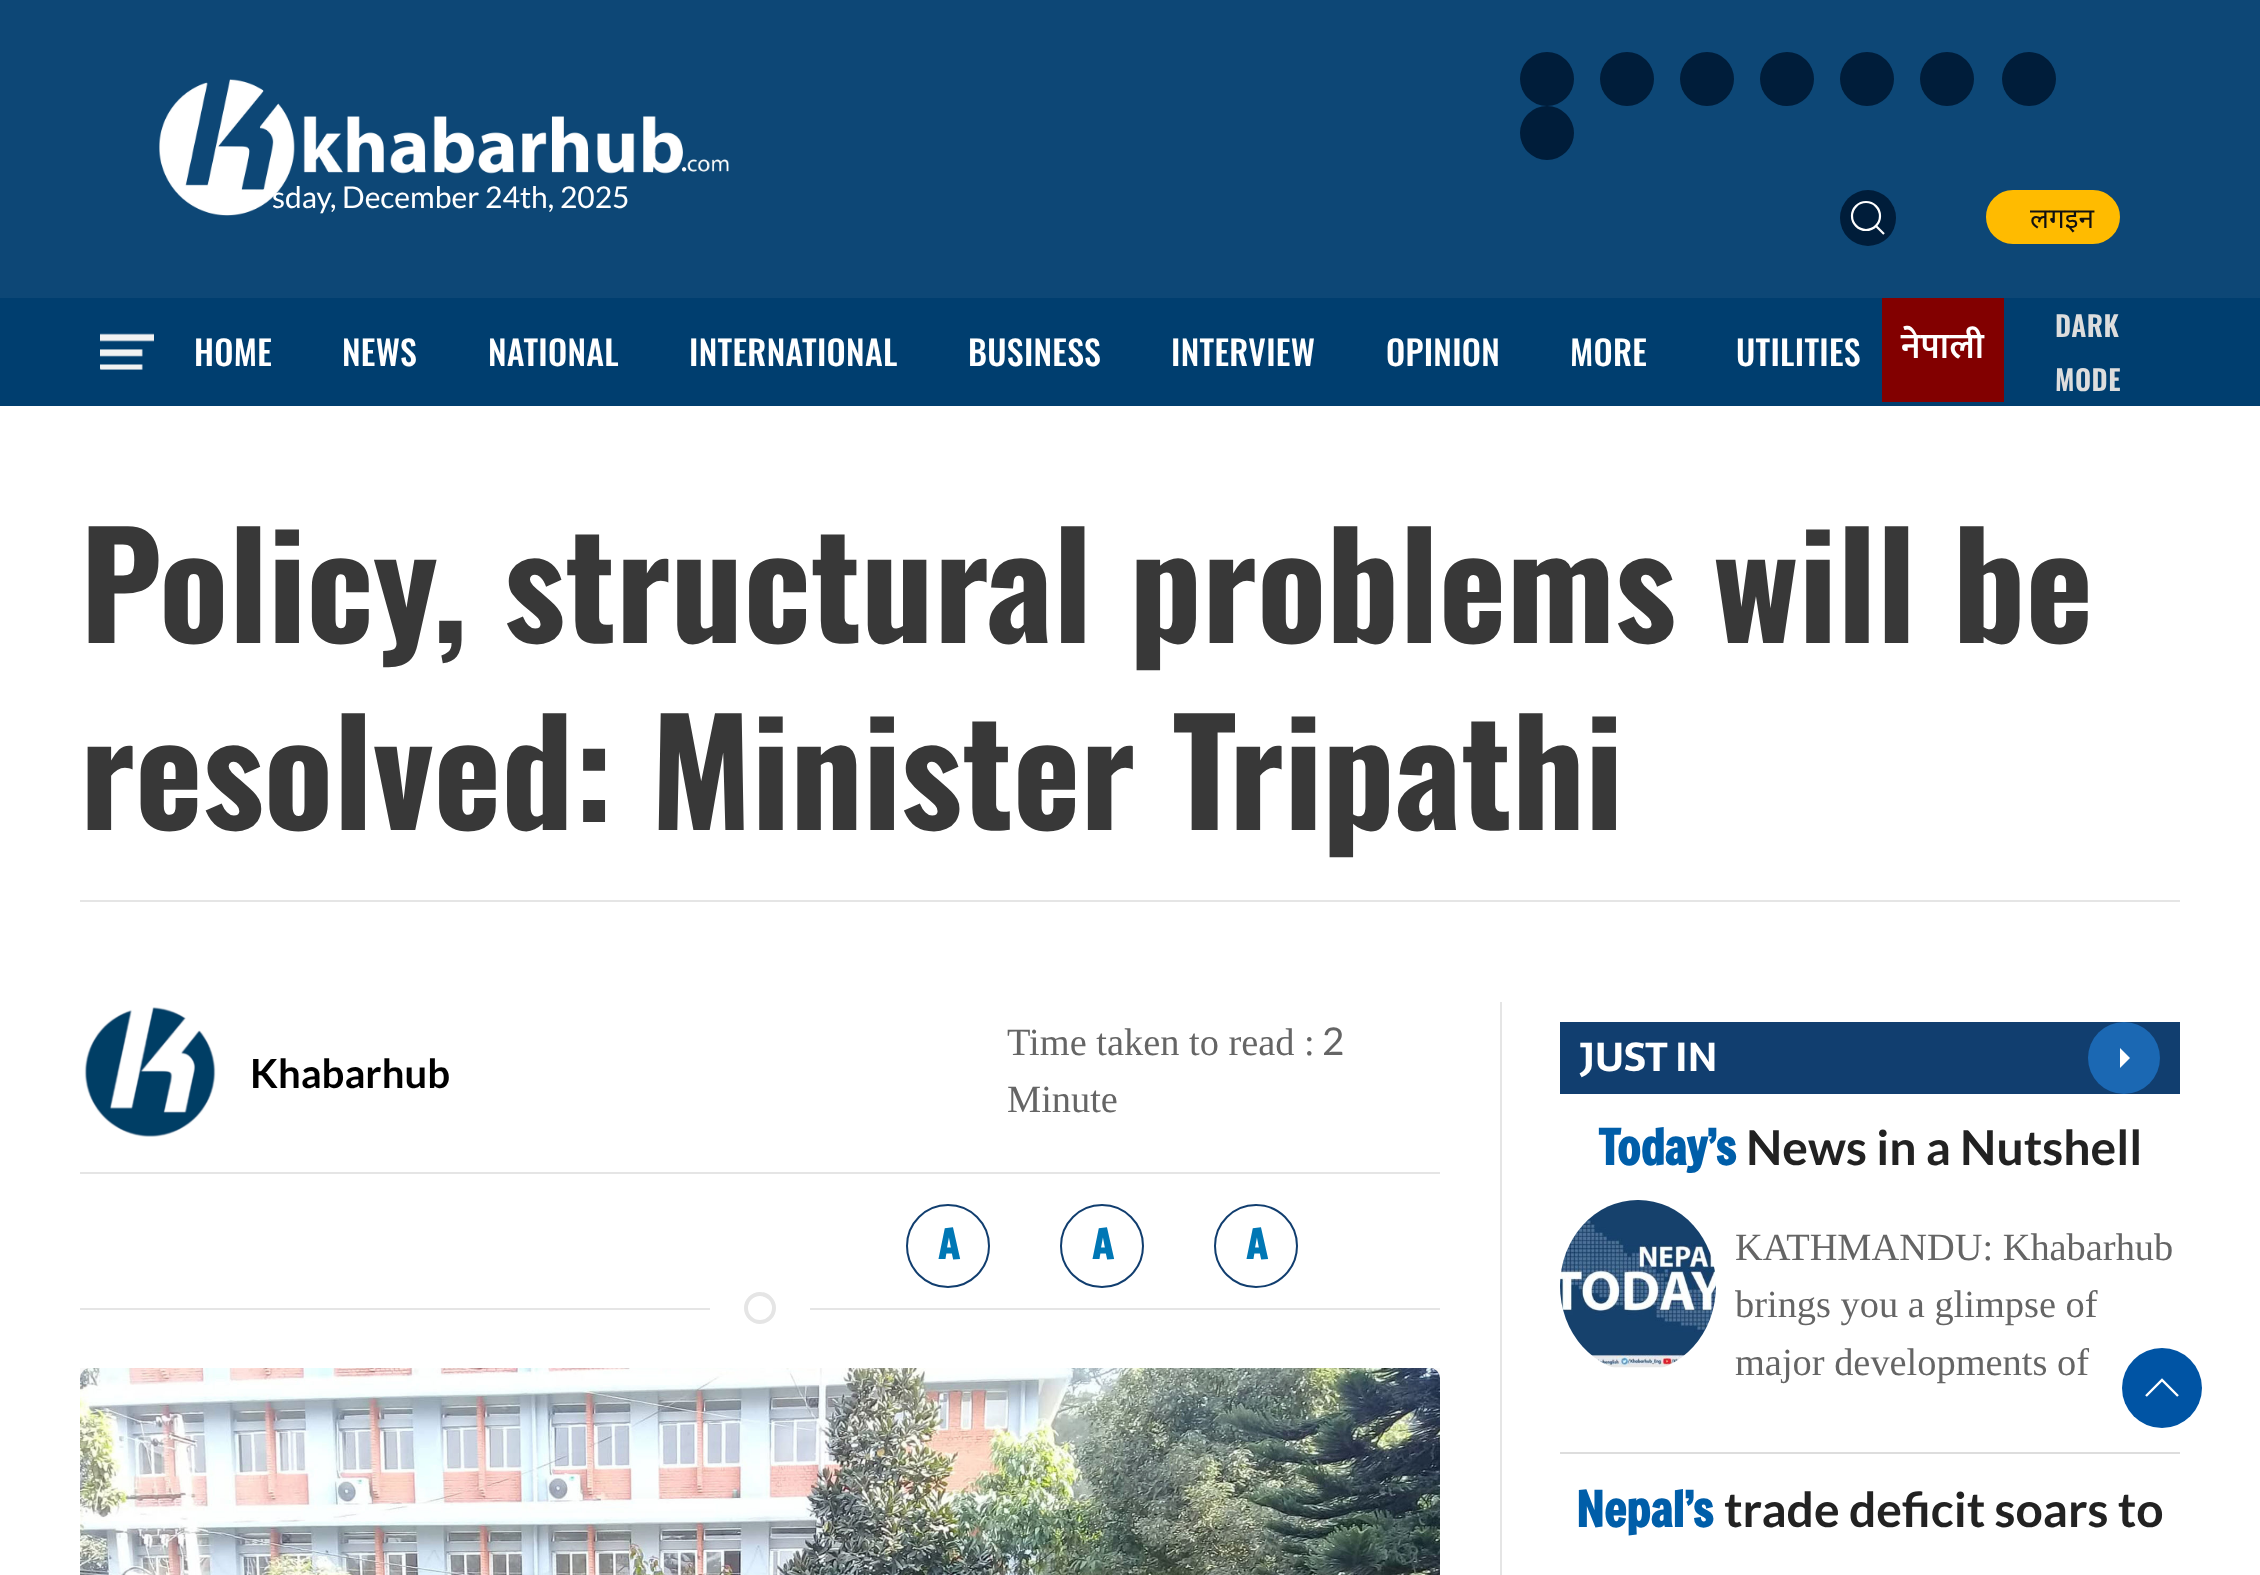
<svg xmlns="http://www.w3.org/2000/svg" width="2260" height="1575">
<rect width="100%" height="100%" fill="#fff"/>
<rect width="2260" height="298" fill="#0d4776"/>
<image x="159" y="79" width="570" height="137" href="media/1.png"/>
<text x="272" y="208" style="font-family:Lato;font-size:30px;fill:#fff">sday, December 24th, 2025</text>
<circle cx="1547" cy="79" r="27" fill="#001d3a"/>
<circle cx="1627" cy="79" r="27" fill="#001d3a"/>
<circle cx="1707" cy="79" r="27" fill="#001d3a"/>
<circle cx="1787" cy="79" r="27" fill="#001d3a"/>
<circle cx="1867" cy="79" r="27" fill="#001d3a"/>
<circle cx="1947" cy="79" r="27" fill="#001d3a"/>
<circle cx="2029" cy="79" r="27" fill="#001d3a"/>
<circle cx="1547" cy="133" r="27" fill="#001d3a"/>
<circle cx="1868" cy="218" r="28" fill="#001d3a"/>
<circle cx="1866" cy="216" r="14" fill="none" stroke="#fff" stroke-width="2.2"/>
<path d="M1876 226l8 8z" fill="none" stroke="#fff" stroke-width="2.2"/>
<rect x="1988" y="192" width="130" height="50" rx="25" fill="#fb0" stroke="#fb0" stroke-width="4"/>
<text x="2030" y="228" style="font-family:Noto Sans;font-size:28px;fill:#111">लगइन</text>
<rect y="298" width="2260" height="108" fill="#003e6f"/>
<image x="100" y="333" width="54" height="37" href="media/2.png"/>
<text x="194" y="366" style="font-family:Oswald;font-size:34px;font-weight:500;letter-spacing:0.3px;fill:#fff">HOME</text>
<text x="342" y="366" style="font-family:Oswald;font-size:34px;font-weight:500;letter-spacing:0.3px;fill:#fff">NEWS</text>
<text x="488" y="366" style="font-family:Oswald;font-size:34px;font-weight:500;letter-spacing:0.3px;fill:#fff">NATIONAL</text>
<text x="689" y="366" style="font-family:Oswald;font-size:34px;font-weight:500;letter-spacing:0.3px;fill:#fff">INTERNATIONAL</text>
<text x="968" y="366" style="font-family:Oswald;font-size:34px;font-weight:500;letter-spacing:0.3px;fill:#fff">BUSINESS</text>
<text x="1171" y="366" style="font-family:Oswald;font-size:34px;font-weight:500;letter-spacing:0.3px;fill:#fff">INTERVIEW</text>
<text x="1386" y="366" style="font-family:Oswald;font-size:34px;font-weight:500;letter-spacing:0.3px;fill:#fff">OPINION</text>
<text x="1570" y="366" style="font-family:Oswald;font-size:34px;font-weight:500;letter-spacing:0.3px;fill:#fff">MORE</text>
<text x="1736" y="366" style="font-family:Oswald;font-size:34px;font-weight:500;letter-spacing:0.3px;fill:#fff">UTILITIES</text>
<rect x="1882" y="298" width="122" height="104" fill="#820000"/>
<text x="1901" y="358" style="font-family:Mukta;font-size:36px;font-weight:600;letter-spacing:0.5px;fill:#fff">नेपाली</text>
<text x="2055" y="337" style="font-family:Oswald;font-size:28px;font-weight:600;letter-spacing:0.5px;fill:#ddd">DARK</text>
<text x="2055" y="391" style="font-family:Oswald;font-size:28px;font-weight:600;letter-spacing:0.5px;fill:#ddd">MODE</text>
<text x="80" y="643" style="font-family:Oswald;font-size:144px;font-weight:bold;fill:#383838">Policy, structural problems will be</text>
<text x="80" y="830" style="font-family:Oswald;font-size:144px;font-weight:bold;fill:#383838">resolved: Minister Tripathi</text>
<rect x="80" y="900" width="2100" height="2" fill="#e5e5e5"/>
<image x="84" y="1007" width="132" height="130" href="media/3.png"/>
<text x="250" y="1088" style="font-family:Lato;font-size:40px;font-weight:bold;fill:#000">Khabarhub</text>
<text x="1007" y="1055" style="font-family:Liberation Serif;font-size:38.4px;fill:#656565">Time taken to read :</text>
<text x="1322" y="1055" style="font-family:Lato;font-size:38.4px;fill:#656565">2</text>
<text x="1007" y="1112" style="font-family:Liberation Serif;font-size:38.4px;fill:#656565">Minute</text>
<rect x="80" y="1172" width="1360" height="2" fill="#e5e5e5"/>
<circle cx="948" cy="1246" r="41" fill="none" stroke="#113e6f" stroke-width="2"/>
<text x="938" y="1259" style="font-family:Freeman;font-size:40px;font-weight:bold;fill:#0077b5">A</text>
<circle cx="1102" cy="1246" r="41" fill="none" stroke="#113e6f" stroke-width="2"/>
<text x="1092" y="1259" style="font-family:Freeman;font-size:40px;font-weight:bold;fill:#0077b5">A</text>
<circle cx="1256" cy="1246" r="41" fill="none" stroke="#113e6f" stroke-width="2"/>
<text x="1246" y="1259" style="font-family:Freeman;font-size:40px;font-weight:bold;fill:#0077b5">A</text>
<circle cx="760" cy="1308" r="14" fill="none" stroke="#e5e5e5" stroke-width="4"/>
<rect x="80" y="1308" width="630" height="2" fill="#e5e5e5"/>
<rect x="810" y="1308" width="630" height="2" fill="#e5e5e5"/>
<rect x="80" y="1368" width="1360" height="10" fill="#f8f8f8"/>
<image x="80" y="1368" width="1360" height="207" href="media/4.png"/>
<rect x="1500" y="1002" width="2" height="573" fill="#e5e5e5"/>
<rect x="1560" y="1022" width="620" height="72" fill="#113e6f"/>
<text x="1580" y="1071" style="font-family:Sarala;font-size:40px;font-weight:bold;fill:#fff">JUST IN</text>
<circle cx="2124" cy="1058" r="36" fill="#1b68b3"/>
<path d="M2120 1048l10 10l-10 10z" fill="#fff"/>
<rect x="1560" y="1452" width="620" height="2" fill="#ddd"/>
<text x="1598" y="1165" style="font-family:Freeman;font-size:48px;font-weight:bold;fill:#005ea9">Today’s</text>
<text x="1746" y="1165" style="font-family:Lato;font-size:48px;font-weight:bold;fill:#222">News in a Nutshell</text>
<image x="1560" y="1200" width="156" height="168" href="media/5.png"/>
<text x="1735" y="1260" style="font-family:Liberation Serif;font-size:38.4px;fill:#656565">KATHMANDU: Khabarhub</text>
<text x="1735" y="1317" style="font-family:Liberation Serif;font-size:38.4px;fill:#656565">brings you a glimpse of</text>
<text x="1735" y="1375" style="font-family:Liberation Serif;font-size:38.4px;fill:#656565">major developments of</text>
<text x="1576" y="1527" style="font-family:Freeman;font-size:48px;font-weight:bold;fill:#005ea9">Nepal’s</text>
<text x="1724" y="1527" style="font-family:Lato;font-size:48px;font-weight:bold;fill:#222">trade deficit soars to</text>
<circle cx="2162" cy="1388" r="40" fill="#0054a4"/>
<path d="M2146 1396l16-16l16 16" fill="none" stroke="#fff" stroke-width="2.4"/>
</svg>
